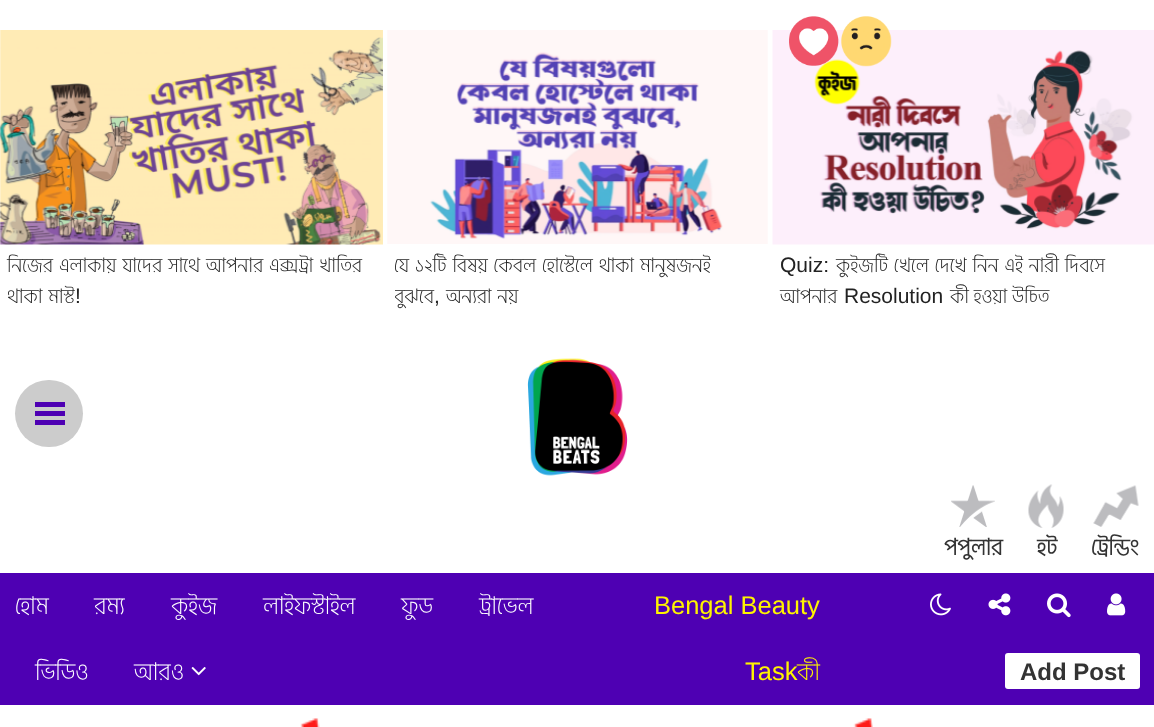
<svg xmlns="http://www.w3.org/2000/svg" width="1154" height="727">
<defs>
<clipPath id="clip1"><rect x="395" y="249" width="366" height="63"/></clipPath>
</defs>
<rect width="100%" height="100%" fill="#fff"/>
<image x="0" y="30" width="383" height="215" href="media/1.png"/>
<text x="7" y="272" word-spacing="1" style="font-family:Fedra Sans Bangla;font-size:21px;font-weight:300;fill:#222">নিজের এলাকায় যাদের সাথে আপনার এক্সট্রা খাতির</text>
<text x="7" y="303" word-spacing="1" style="font-family:Fedra Sans Bangla;font-size:21px;font-weight:300;fill:#222">থাকা মাস্ট</text>
<text x="75" y="303" style="font-family:Liberation Sans;font-size:21px;fill:#222">!</text>
<image x="387" y="30" width="381" height="214" href="media/2.png"/>
<g clip-path="url(#clip1)">
<text x="394" y="272" word-spacing="1" style="font-family:Fedra Sans Bangla;font-size:21px;font-weight:300;fill:#222">যে ১২টি বিষয় কেবল হোস্টেলে থাকা মানুষজনই</text>
<text x="394" y="303" style="font-family:Fedra Sans Bangla;font-size:21px;font-weight:300;fill:#222">বুঝবে</text>
</g>
<text x="434" y="303" style="font-family:Liberation Sans;font-size:21px;fill:#222">,</text>
<text x="446" y="303" word-spacing="1" style="font-family:Fedra Sans Bangla;font-size:21px;font-weight:300;fill:#222">অন্যরা নয়</text>
<image x="772" y="30" width="382" height="215" href="media/5.png"/>
<image x="789" y="16" width="50" height="50" href="media/3.png"/>
<image x="841" y="16" width="51" height="51" href="media/4.png"/>
<text x="780" y="272" style="font-family:Liberation Sans;font-size:21px;fill:#222">Quiz:</text>
<text x="836" y="272" word-spacing="1" style="font-family:Fedra Sans Bangla;font-size:21px;font-weight:300;fill:#222">কুইজটি খেলে দেখে নিন এই নারী দিবসে</text>
<text x="780" y="303" style="font-family:Fedra Sans Bangla;font-size:21px;font-weight:300;fill:#222">আপনার</text>
<text x="844" y="303" style="font-family:Liberation Sans;font-size:21px;fill:#222">Resolution</text>
<text x="950" y="303" style="font-family:Fedra Sans Bangla;font-size:21px;font-weight:300;fill:#222">কী হওয়া উচিত</text>
<rect x="15" y="380" width="68" height="67" rx="33.5" fill="#ccc"/>
<rect x="35" y="411" width="30" height="5" fill="#4e00b3"/>
<rect x="35" y="402" width="30" height="5" fill="#4e00b3"/>
<rect x="35" y="420" width="30" height="5" fill="#4e00b3"/>
<image x="527" y="358" width="101" height="118" href="media/6.png"/>
<image x="951" y="485" width="44" height="42" href="media/7.png"/>
<text x="944" y="555" style="font-family:Fedra Sans Bangla;font-size:24px;font-weight:bold;fill:#333">পপুলার</text>
<image x="1028" y="484" width="36" height="44" href="media/8.png"/>
<text x="1037" y="555" style="font-family:Fedra Sans Bangla;font-size:24px;font-weight:bold;fill:#333">হট</text>
<image x="1093" y="485" width="46" height="42" href="media/9.png"/>
<text x="1091" y="555" style="font-family:Fedra Sans Bangla;font-size:24px;font-weight:bold;fill:#333">ট্রেন্ডিং</text>
<rect y="573" width="1154" height="132" fill="#4e00b3"/>
<text x="15" y="614" style="font-family:Fedra Sans Bangla;font-size:25.5px;font-weight:300;fill:#fff">হোম</text>
<text x="94" y="614" style="font-family:Fedra Sans Bangla;font-size:25.5px;font-weight:300;fill:#fff">রম্য</text>
<text x="171" y="614" style="font-family:Fedra Sans Bangla;font-size:25.5px;font-weight:300;fill:#fff">কুইজ</text>
<text x="263" y="614" style="font-family:Fedra Sans Bangla;font-size:25.5px;font-weight:300;fill:#fff">লাইফস্টাইল</text>
<text x="401" y="614" style="font-family:Fedra Sans Bangla;font-size:25.5px;font-weight:300;fill:#fff">ফুড</text>
<text x="479" y="614" style="font-family:Fedra Sans Bangla;font-size:25.5px;font-weight:300;fill:#fff">ট্রাভেল</text>
<text x="35" y="680" style="font-family:Fedra Sans Bangla;font-size:25.5px;font-weight:300;fill:#fff">ভিডিও</text>
<text x="134" y="680" style="font-family:Fedra Sans Bangla;font-size:25.5px;font-weight:300;fill:#fff">আরও</text>
<image x="191" y="667" width="15" height="9" href="media/10.png"/>
<text x="654" y="614" style="font-family:Liberation Sans;font-size:25.5px;fill:#fff300">Bengal Beauty</text>
<text x="745" y="680" style="font-family:Liberation Sans;font-size:25.5px;fill:#fff300">Task</text>
<text x="797" y="680" style="font-family:Fedra Sans Bangla;font-size:25.5px;font-weight:300;fill:#fff300">কী</text>
<image x="930" y="593" width="21" height="23" href="media/11.png"/>
<image x="988" y="593" width="23" height="23" href="media/12.png"/>
<image x="1047" y="593" width="24" height="25" href="media/13.png"/>
<image x="1107" y="593" width="19" height="23" href="media/14.png"/>
<rect x="1005" y="653" width="135" height="36" rx="3" fill="#fff"/>
<text x="1020" y="680" style="font-family:Liberation Sans;font-size:24px;font-weight:bold;fill:#333">Add Post</text>
<image x="300" y="718" width="20" height="9" href="media/15.png"/>
<image x="853" y="718" width="20" height="9" href="media/16.png"/>
</svg>
